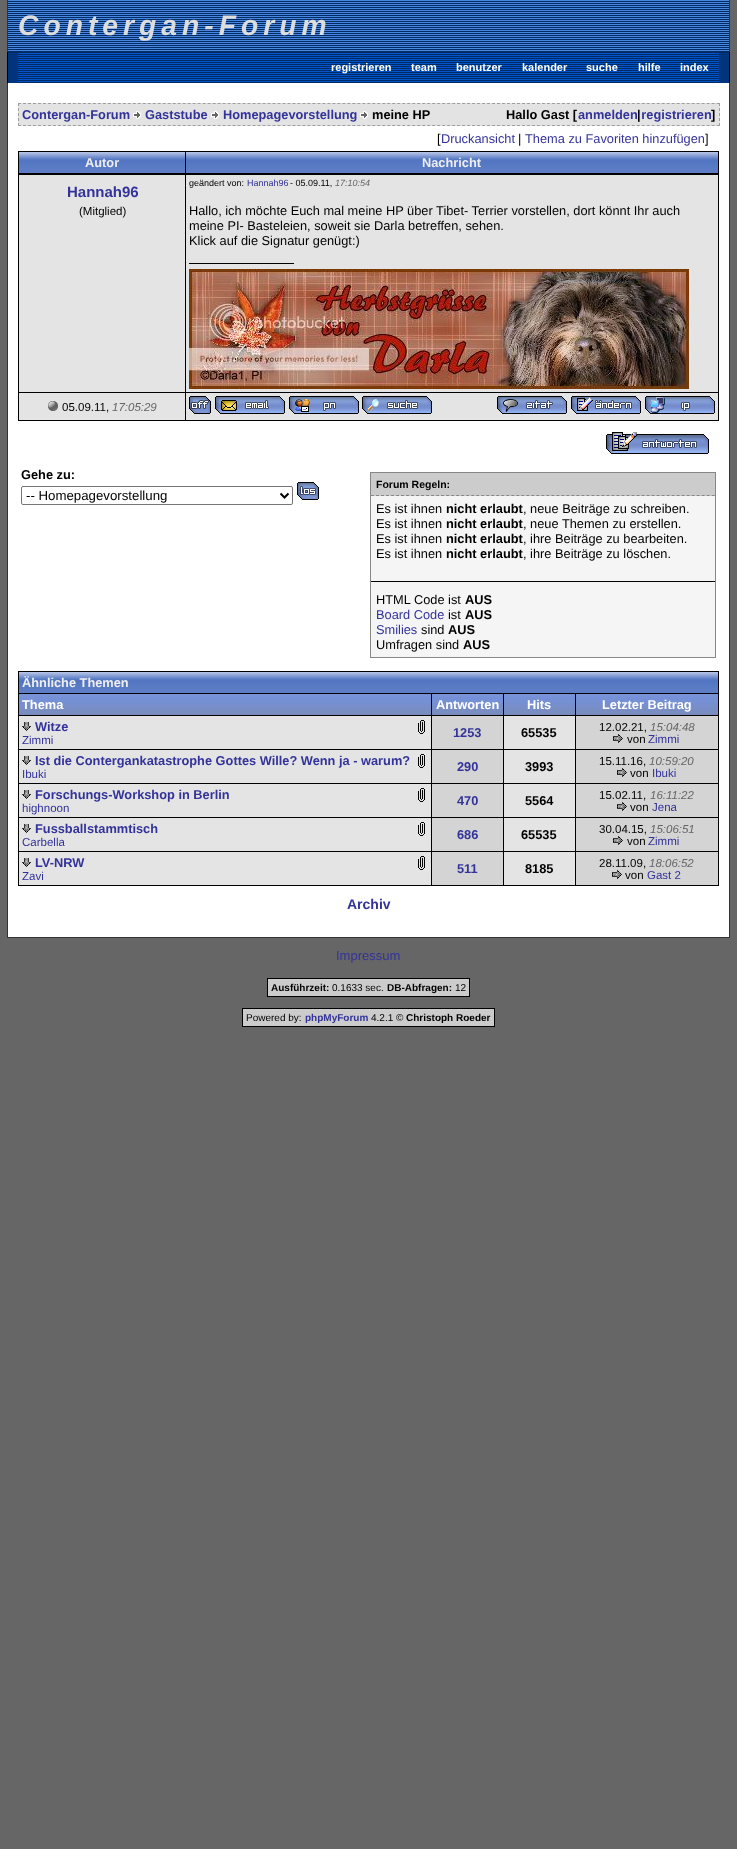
<svg xmlns="http://www.w3.org/2000/svg" width="737" height="1849">
<rect width="100%" height="100%" fill="#666"/>
<rect x="8" y="51" width="721" height="1" fill="#002a64"/>
<image x="8" y="0" width="721" height="51" href="media/1.png"/>
<rect x="729" width="1" height="52" fill="#333"/>
<rect x="7" width="1" height="52" fill="#333"/>
<text x="18" y="35" style="font-family:Liberation Sans;font-size:28.25px;font-weight:bold;font-style:italic;letter-spacing:5px;fill:#ddd">Contergan-Forum</text>
<rect x="8" y="53" width="721" height="30" fill="#00347d"/>
<rect x="7" y="52" width="723" height="1" fill="#002a64"/>
<rect x="729" y="52" width="1" height="31" fill="#000"/>
<rect x="7" y="52" width="1" height="31" fill="#000"/>
<image x="18" y="53" width="701" height="30" href="media/2.png"/>
<text x="331" y="71" style="font-family:Liberation Sans;font-size:11px;font-weight:bold;fill:#fff">registrieren</text>
<text x="411" y="71" style="font-family:Liberation Sans;font-size:11px;font-weight:bold;fill:#fff">team</text>
<text x="456" y="71" style="font-family:Liberation Sans;font-size:11px;font-weight:bold;fill:#fff">benutzer</text>
<text x="522" y="71" style="font-family:Liberation Sans;font-size:11px;font-weight:bold;fill:#fff">kalender</text>
<text x="586" y="71" style="font-family:Liberation Sans;font-size:11px;font-weight:bold;fill:#fff">suche</text>
<text x="638" y="71" style="font-family:Liberation Sans;font-size:11px;font-weight:bold;fill:#fff">hilfe</text>
<text x="680" y="71" style="font-family:Liberation Sans;font-size:11px;font-weight:bold;fill:#fff">index</text>
<rect x="8" y="83" width="721" height="854" fill="#fff"/>
<rect x="729" y="83" width="1" height="855" fill="#333"/>
<rect x="7" y="83" width="1" height="829" fill="#333"/>
<rect x="18" y="103" width="702" height="23" fill="#e3e3e3"/>
<path d="M18 103.5h702" fill="none" stroke="#9e9e9e" stroke-dasharray="3 1.99"/>
<path d="M719.5 103v23" fill="none" stroke="#9e9e9e" stroke-dasharray="3 2"/>
<path d="M18 125.5h702" fill="none" stroke="#9e9e9e" stroke-dasharray="3 1.99"/>
<path d="M18.5 103v23" fill="none" stroke="#9e9e9e" stroke-dasharray="3 2"/>
<text x="22" y="119" style="font-family:Liberation Sans;font-size:12.8px;font-weight:bold;fill:#339">Contergan-Forum</text>
<image x="133" y="111" width="8" height="8" href="media/3.png"/>
<text x="145" y="119" style="font-family:Liberation Sans;font-size:12.8px;font-weight:bold;fill:#339">Gaststube</text>
<image x="211" y="111" width="8" height="8" href="media/3.png"/>
<text x="223" y="119" style="font-family:Liberation Sans;font-size:12.8px;font-weight:bold;fill:#339">Homepagevorstellung</text>
<image x="360" y="111" width="8" height="8" href="media/3.png"/>
<text x="372" y="119" style="font-family:Liberation Sans;font-size:12.8px;font-weight:bold;fill:#000">meine HP</text>
<text x="506" y="119" style="font-family:Liberation Sans;font-size:12.8px;font-weight:bold;fill:#000">Hallo Gast [</text>
<text x="578" y="119" style="font-family:Liberation Sans;font-size:12.8px;font-weight:bold;fill:#339">anmelden registrieren</text>
<text x="637" y="119" style="font-family:Liberation Sans;font-size:12.8px;font-weight:bold;fill:#000">|</text>
<text x="711" y="119" style="font-family:Liberation Sans;font-size:12.8px;font-weight:bold;fill:#000">]</text>
<text x="437" y="143" style="font-family:Liberation Sans;font-size:12.8px;fill:#000">[</text>
<text x="441" y="143" style="font-family:Liberation Sans;font-size:12.8px;fill:#339">Druckansicht</text>
<text x="518" y="143" style="font-family:Liberation Sans;font-size:12.8px;fill:#000">|</text>
<text x="525" y="143" style="font-family:Liberation Sans;font-size:12.8px;fill:#339">Thema zu Favoriten hinzufügen</text>
<text x="705" y="143" style="font-family:Liberation Sans;font-size:12.8px;fill:#000">]</text>
<rect x="18" y="151" width="701" height="270" fill="#000"/>
<rect x="19" y="152" width="166" height="21" fill="#9fbffb"/>
<image x="19" y="152" width="166" height="21" href="media/4.png"/>
<text x="85" y="167" style="font-family:Liberation Sans;font-size:12.8px;font-weight:bold;fill:#eee">Autor</text>
<rect x="186" y="152" width="532" height="21" fill="#9fbffb"/>
<image x="186" y="152" width="532" height="21" href="media/5.png"/>
<text x="422" y="167" style="font-family:Liberation Sans;font-size:12.8px;font-weight:bold;fill:#eee">Nachricht</text>
<rect x="19" y="175" width="166" height="217" fill="#e4e4e4"/>
<text x="67" y="197" style="font-family:Liberation Sans;font-size:15px;font-weight:bold;fill:#339">Hannah96</text>
<text x="79" y="215" style="font-family:Liberation Sans;font-size:11.5px;fill:#000">(Mitglied)</text>
<rect x="186" y="175" width="532" height="217" fill="#e4e4e4"/>
<text x="189" y="186" style="font-family:Liberation Sans;font-size:9px;fill:#000">geändert von:</text>
<text x="247" y="186" style="font-family:Liberation Sans;font-size:9px;fill:#339">Hannah96</text>
<text x="290" y="186" style="font-family:Liberation Sans;font-size:9px;fill:#000">- 05.09.11,</text>
<text x="335" y="186" style="font-family:Liberation Sans;font-size:9px;font-style:italic;fill:#666">17:10:54</text>
<text x="189" y="215" style="font-family:Liberation Sans;font-size:12.8px;fill:#000">Hallo, ich möchte Euch mal meine HP über Tibet- Terrier vorstellen, dort könnt Ihr auch</text>
<text x="189" y="230" style="font-family:Liberation Sans;font-size:12.8px;fill:#000">meine PI- Basteleien, soweit sie Darla betreffen, sehen.</text>
<text x="189" y="245" style="font-family:Liberation Sans;font-size:12.8px;fill:#000">Klick auf die Signatur genügt:)</text>
<rect x="189" y="263" width="105" height="1" fill="#000"/>
<image x="189" y="269" width="500" height="120" href="media/6.png"/>
<rect x="19" y="393" width="166" height="27" fill="#e4e4e4"/>
<image x="48" y="401" width="10" height="10" href="media/7.png"/>
<text x="62" y="411" style="font-family:Liberation Sans;font-size:11.5px;fill:#000">05.09.11,</text>
<text x="112" y="411" style="font-family:Liberation Sans;font-size:11.5px;font-style:italic;fill:#666">17:05:29</text>
<rect x="186" y="393" width="532" height="27" fill="#e4e4e4"/>
<image x="189" y="396" width="22" height="18" href="media/8.png"/>
<image x="215" y="396" width="70" height="18" href="media/9.png"/>
<image x="289" y="396" width="70" height="18" href="media/10.png"/>
<image x="362" y="396" width="70" height="18" href="media/11.png"/>
<image x="497" y="396" width="70" height="18" href="media/12.png"/>
<image x="571" y="396" width="70" height="18" href="media/13.png"/>
<image x="645" y="396" width="70" height="18" href="media/14.png"/>
<image x="606" y="432" width="103" height="22" href="media/15.png"/>
<text x="21" y="479" style="font-family:Liberation Sans;font-size:12.8px;font-weight:bold;fill:#000">Gehe zu:</text>
<rect x="21.5" y="486.5" width="271" height="18" rx="1.5" fill="none" stroke="#767676"/>
<path d="M280.5 493.5l4 4l4-4" fill="none" stroke="#000" stroke-width="2"/>
<text x="26" y="500" style="font-family:Liberation Sans;font-size:13.25px;fill:#000">-- Homepagevorstellung</text>
<image x="297" y="482" width="22" height="18" href="media/16.png"/>
<rect x="371" y="496" width="344" height="161" fill="#f5f5f5"/>
<rect x="370.5" y="472.5" width="345" height="185" fill="none" stroke="#878787"/>
<rect x="371" y="473" width="344" height="23" fill="#ccc"/>
<path d="M371 495.5h344" fill="none" stroke="#878787" stroke-dasharray="3 2.01"/>
<text x="376" y="488" style="font-family:Liberation Sans;font-size:10.5px;font-weight:bold;fill:#000">Forum Regeln:</text>
<text x="376" y="513" style="font-family:Liberation Sans;font-size:12.8px;fill:#000">Es ist ihnen</text>
<text x="446" y="513" style="font-family:Liberation Sans;font-size:12.8px;font-weight:bold;fill:#000">nicht erlaubt</text>
<text x="523" y="513" style="font-family:Liberation Sans;font-size:12.8px;fill:#000">, neue Beiträge zu schreiben.</text>
<text x="376" y="528" style="font-family:Liberation Sans;font-size:12.8px;fill:#000">Es ist ihnen</text>
<text x="446" y="528" style="font-family:Liberation Sans;font-size:12.8px;font-weight:bold;fill:#000">nicht erlaubt</text>
<text x="523" y="528" style="font-family:Liberation Sans;font-size:12.8px;fill:#000">, neue Themen zu erstellen.</text>
<text x="376" y="543" style="font-family:Liberation Sans;font-size:12.8px;fill:#000">Es ist ihnen</text>
<text x="446" y="543" style="font-family:Liberation Sans;font-size:12.8px;font-weight:bold;fill:#000">nicht erlaubt</text>
<text x="523" y="543" style="font-family:Liberation Sans;font-size:12.8px;fill:#000">, ihre Beiträge zu bearbeiten.</text>
<text x="376" y="558" style="font-family:Liberation Sans;font-size:12.8px;fill:#000">Es ist ihnen</text>
<text x="446" y="558" style="font-family:Liberation Sans;font-size:12.8px;font-weight:bold;fill:#000">nicht erlaubt</text>
<text x="523" y="558" style="font-family:Liberation Sans;font-size:12.8px;fill:#000">, ihre Beiträge zu löschen.</text>
<rect x="371" y="581" width="344" height="1" fill="#000"/>
<text x="376" y="604" style="font-family:Liberation Sans;font-size:12.8px;fill:#000">HTML Code ist</text>
<text x="465" y="604" style="font-family:Liberation Sans;font-size:12.8px;font-weight:bold;fill:#000">AUS</text>
<text x="376" y="619" style="font-family:Liberation Sans;font-size:12.8px;fill:#339">Board Code</text>
<text x="448" y="619" style="font-family:Liberation Sans;font-size:12.8px;fill:#000">ist</text>
<text x="465" y="619" style="font-family:Liberation Sans;font-size:12.8px;font-weight:bold;fill:#000">AUS</text>
<text x="376" y="634" style="font-family:Liberation Sans;font-size:12.8px;fill:#339">Smilies</text>
<text x="421" y="634" style="font-family:Liberation Sans;font-size:12.8px;fill:#000">sind</text>
<text x="448" y="634" style="font-family:Liberation Sans;font-size:12.8px;font-weight:bold;fill:#000">AUS</text>
<text x="376" y="649" style="font-family:Liberation Sans;font-size:12.8px;fill:#000">Umfragen sind</text>
<text x="463" y="649" style="font-family:Liberation Sans;font-size:12.8px;font-weight:bold;fill:#000">AUS</text>
<rect x="18" y="671" width="701" height="215" fill="#000"/>
<rect x="19" y="672" width="699" height="21" fill="#9fbffb"/>
<image x="19" y="672" width="699" height="21" href="media/17.png"/>
<text x="22" y="687" style="font-family:Liberation Sans;font-size:12.8px;font-weight:bold;fill:#eee">Ähnliche Themen</text>
<image x="19" y="694" width="412" height="21" href="media/18.png"/>
<text x="22" y="709" style="font-family:Liberation Sans;font-size:12.8px;font-weight:bold;fill:#fff">Thema</text>
<image x="432" y="694" width="71" height="21" href="media/19.png"/>
<text x="436" y="709" style="font-family:Liberation Sans;font-size:12.8px;font-weight:bold;fill:#fff">Antworten</text>
<image x="504" y="694" width="71" height="21" href="media/19.png"/>
<text x="527" y="709" style="font-family:Liberation Sans;font-size:12.8px;font-weight:bold;fill:#fff">Hits</text>
<image x="576" y="694" width="142" height="21" href="media/20.png"/>
<text x="602" y="709" style="font-family:Liberation Sans;font-size:12.8px;font-weight:bold;fill:#fff">Letzter Beitrag</text>
<rect x="19" y="716" width="412" height="33" fill="#e4e4e4"/>
<image x="22" y="722" width="9" height="9" href="media/21.png"/>
<text x="35" y="731" style="font-family:Liberation Sans;font-size:12.8px;font-weight:bold;fill:#339">Witze</text>
<image x="418" y="720" width="7" height="14" href="media/22.png"/>
<text x="22" y="744" style="font-family:Liberation Sans;font-size:11.5px;fill:#339">Zimmi</text>
<rect x="432" y="716" width="71" height="33" fill="#d4d4d4"/>
<text x="453" y="737" style="font-family:Liberation Sans;font-size:12.8px;font-weight:bold;fill:#339">1253</text>
<rect x="504" y="716" width="71" height="33" fill="#e4e4e4"/>
<text x="521" y="737" style="font-family:Liberation Sans;font-size:12.8px;font-weight:bold;fill:#000">65535</text>
<rect x="576" y="716" width="142" height="33" fill="#d4d4d4"/>
<text x="599" y="731" style="font-family:Liberation Sans;font-size:11.5px;fill:#000">12.02.21,</text>
<text x="650" y="731" style="font-family:Liberation Sans;font-size:11.5px;font-style:italic;fill:#666">15:04:48</text>
<image x="613" y="734" width="10" height="9" href="media/23.png"/>
<text x="627" y="743" style="font-family:Liberation Sans;font-size:11.5px;fill:#000">von</text>
<text x="648" y="743" style="font-family:Liberation Sans;font-size:11.5px;fill:#339">Zimmi</text>
<rect x="19" y="750" width="412" height="33" fill="#e4e4e4"/>
<image x="22" y="756" width="9" height="9" href="media/21.png"/>
<text x="35" y="765" style="font-family:Liberation Sans;font-size:12.8px;font-weight:bold;fill:#339">Ist die Contergankatastrophe Gottes Wille? Wenn ja - warum?</text>
<image x="418" y="754" width="7" height="14" href="media/22.png"/>
<text x="22" y="778" style="font-family:Liberation Sans;font-size:11.5px;fill:#339">Ibuki</text>
<rect x="432" y="750" width="71" height="33" fill="#d4d4d4"/>
<text x="457" y="771" style="font-family:Liberation Sans;font-size:12.8px;font-weight:bold;fill:#339">290</text>
<rect x="504" y="750" width="71" height="33" fill="#e4e4e4"/>
<text x="525" y="771" style="font-family:Liberation Sans;font-size:12.8px;font-weight:bold;fill:#000">3993</text>
<rect x="576" y="750" width="142" height="33" fill="#d4d4d4"/>
<text x="599" y="765" style="font-family:Liberation Sans;font-size:11.5px;fill:#000">15.11.16,</text>
<text x="649" y="765" style="font-family:Liberation Sans;font-size:11.5px;font-style:italic;fill:#666">10:59:20</text>
<image x="617" y="768" width="10" height="9" href="media/23.png"/>
<text x="630" y="777" style="font-family:Liberation Sans;font-size:11.5px;fill:#000">von</text>
<text x="652" y="777" style="font-family:Liberation Sans;font-size:11.5px;fill:#339">Ibuki</text>
<rect x="19" y="784" width="412" height="33" fill="#e4e4e4"/>
<image x="22" y="790" width="9" height="9" href="media/21.png"/>
<text x="35" y="799" style="font-family:Liberation Sans;font-size:12.8px;font-weight:bold;fill:#339">Forschungs-Workshop in Berlin</text>
<image x="418" y="788" width="7" height="14" href="media/22.png"/>
<text x="22" y="812" style="font-family:Liberation Sans;font-size:11.5px;fill:#339">highnoon</text>
<rect x="432" y="784" width="71" height="33" fill="#d4d4d4"/>
<text x="457" y="805" style="font-family:Liberation Sans;font-size:12.8px;font-weight:bold;fill:#339">470</text>
<rect x="504" y="784" width="71" height="33" fill="#e4e4e4"/>
<text x="525" y="805" style="font-family:Liberation Sans;font-size:12.8px;font-weight:bold;fill:#000">5564</text>
<rect x="576" y="784" width="142" height="33" fill="#d4d4d4"/>
<text x="599" y="799" style="font-family:Liberation Sans;font-size:11.5px;fill:#000">15.02.11,</text>
<text x="650" y="799" style="font-family:Liberation Sans;font-size:11.5px;font-style:italic;fill:#666">16:11:22</text>
<image x="617" y="802" width="10" height="9" href="media/23.png"/>
<text x="630" y="811" style="font-family:Liberation Sans;font-size:11.5px;fill:#000">von</text>
<text x="652" y="811" style="font-family:Liberation Sans;font-size:11.5px;fill:#339">Jena</text>
<rect x="19" y="818" width="412" height="33" fill="#e4e4e4"/>
<image x="22" y="824" width="9" height="9" href="media/21.png"/>
<text x="35" y="833" style="font-family:Liberation Sans;font-size:12.8px;font-weight:bold;fill:#339">Fussballstammtisch</text>
<image x="418" y="822" width="7" height="14" href="media/22.png"/>
<text x="22" y="846" style="font-family:Liberation Sans;font-size:11.5px;fill:#339">Carbella</text>
<rect x="432" y="818" width="71" height="33" fill="#d4d4d4"/>
<text x="457" y="839" style="font-family:Liberation Sans;font-size:12.8px;font-weight:bold;fill:#339">686</text>
<rect x="504" y="818" width="71" height="33" fill="#e4e4e4"/>
<text x="521" y="839" style="font-family:Liberation Sans;font-size:12.8px;font-weight:bold;fill:#000">65535</text>
<rect x="576" y="818" width="142" height="33" fill="#d4d4d4"/>
<text x="599" y="833" style="font-family:Liberation Sans;font-size:11.5px;fill:#000">30.04.15,</text>
<text x="650" y="833" style="font-family:Liberation Sans;font-size:11.5px;font-style:italic;fill:#666">15:06:51</text>
<image x="613" y="836" width="10" height="9" href="media/23.png"/>
<text x="627" y="845" style="font-family:Liberation Sans;font-size:11.5px;fill:#000">von</text>
<text x="648" y="845" style="font-family:Liberation Sans;font-size:11.5px;fill:#339">Zimmi</text>
<rect x="19" y="852" width="412" height="33" fill="#e4e4e4"/>
<image x="22" y="858" width="9" height="9" href="media/21.png"/>
<text x="35" y="867" style="font-family:Liberation Sans;font-size:12.8px;font-weight:bold;fill:#339">LV-NRW</text>
<image x="418" y="856" width="7" height="14" href="media/22.png"/>
<text x="22" y="880" style="font-family:Liberation Sans;font-size:11.5px;fill:#339">Zavi</text>
<rect x="432" y="852" width="71" height="33" fill="#d4d4d4"/>
<text x="457" y="873" style="font-family:Liberation Sans;font-size:12.8px;font-weight:bold;fill:#339">511</text>
<rect x="504" y="852" width="71" height="33" fill="#e4e4e4"/>
<text x="525" y="873" style="font-family:Liberation Sans;font-size:12.8px;font-weight:bold;fill:#000">8185</text>
<rect x="576" y="852" width="142" height="33" fill="#d4d4d4"/>
<text x="599" y="867" style="font-family:Liberation Sans;font-size:11.5px;fill:#000">28.11.09,</text>
<text x="649" y="867" style="font-family:Liberation Sans;font-size:11.5px;font-style:italic;fill:#666">18:06:52</text>
<image x="612" y="870" width="10" height="9" href="media/23.png"/>
<text x="625" y="879" style="font-family:Liberation Sans;font-size:11.5px;fill:#000">von</text>
<text x="647" y="879" style="font-family:Liberation Sans;font-size:11.5px;fill:#339">Gast 2</text>
<text x="347" y="909" style="font-family:Liberation Sans;font-size:14px;font-weight:bold;fill:#339">Archiv</text>
<rect x="7" y="937" width="723" height="1" fill="#333"/>
<rect x="7" y="912" width="1" height="26" fill="#333"/>
<text x="336" y="960" style="font-family:Liberation Sans;font-size:13px;fill:#339">Impressum</text>
<rect x="267" y="978" width="203" height="19" fill="#000"/>
<rect x="268" y="979" width="201" height="17" fill="#ccc"/>
<text x="271" y="991" style="font-family:Liberation Sans;font-size:10px;font-weight:bold;fill:#000">Ausführzeit:</text>
<text x="332" y="991" style="font-family:Liberation Sans;font-size:10px;fill:#000">0.1633 sec.</text>
<text x="387" y="991" style="font-family:Liberation Sans;font-size:10px;font-weight:bold;fill:#000">DB-Abfragen:</text>
<text x="455" y="991" style="font-family:Liberation Sans;font-size:10px;fill:#000">12</text>
<rect x="242.5" y="1008.5" width="252" height="18" fill="none" stroke="#000"/>
<rect x="243" y="1009" width="251" height="17" fill="#ccc"/>
<text x="246" y="1021" style="font-family:Liberation Sans;font-size:10px;fill:#000">Powered by:</text>
<text x="305" y="1021" style="font-family:Liberation Sans;font-size:10px;font-weight:bold;fill:#339">phpMyForum</text>
<text x="371" y="1021" style="font-family:Liberation Sans;font-size:10px;fill:#000">4.2.1 ©</text>
<text x="406" y="1021" style="font-family:Liberation Sans;font-size:10px;font-weight:bold;fill:#000">Christoph Roeder</text>
</svg>
